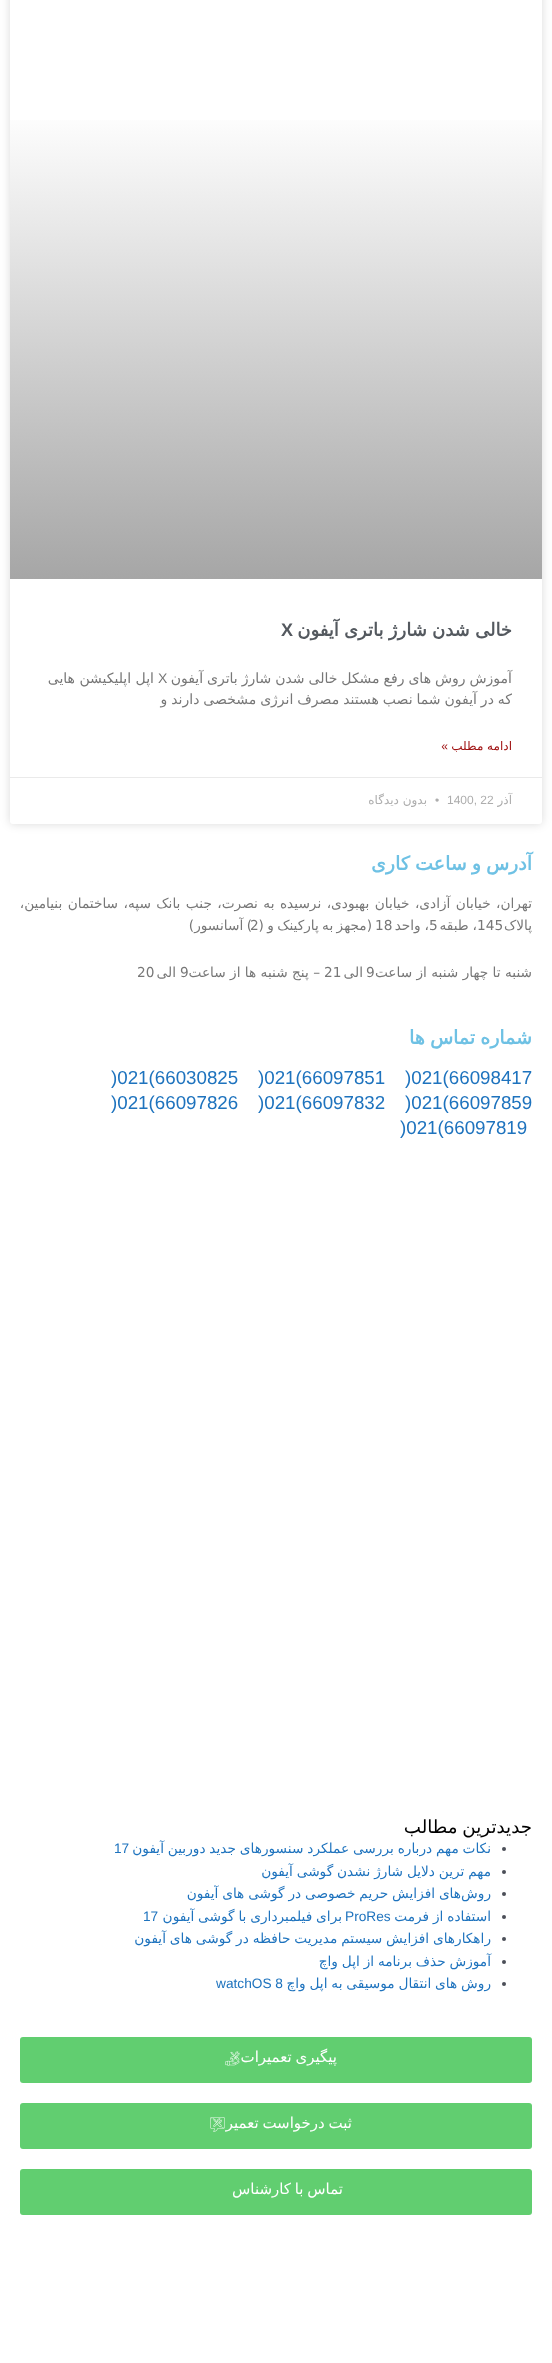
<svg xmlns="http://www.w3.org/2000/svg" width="552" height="2363">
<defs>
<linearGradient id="g1" gradientUnits="userSpaceOnUse" x1="276" y1="579" x2="276" y2="-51"><stop offset="0" stop-color="#a6a6a6"/><stop offset="0.75" stop-color="#fff"/></linearGradient>
</defs>
<rect width="100%" height="100%" fill="#fff"/>
<rect x="10" y="-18" width="532" height="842" rx="3" fill="#00000026" filter="blur(5px)"/>
<rect x="10" y="-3" width="532" height="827" rx="3" fill="#fff"/>
<rect x="10" y="120" width="532" height="459" fill="url(#g1)"/>
<text x="512" y="636" word-spacing="-0.5" style="font-family:DejaVu Sans;font-size:18px;font-weight:bold;direction:rtl;fill:#54595f">خالی شدن شارژ باتری آیفون</text>
<text x="281" y="636" style="font-family:Liberation Sans;font-size:18px;font-weight:bold;fill:#54595f">X</text>
<text x="512" y="683" word-spacing="-0.5" style="font-family:DejaVu Sans;font-size:14px;direction:rtl;fill:#777">آموزش روش های رفع مشکل خالی شدن شارژ باتری آیفون</text>
<text x="158" y="683" style="font-family:Liberation Sans;font-size:14px;fill:#777">X</text>
<text x="154" y="683" style="font-family:DejaVu Sans;font-size:14px;direction:rtl;fill:#777">اپل اپلیکیشن هایی</text>
<text x="512" y="704" word-spacing="-0.5" style="font-family:DejaVu Sans;font-size:14px;direction:rtl;fill:#777">که در آیفون شما نصب هستند مصرف انرژی مشخصی دارند و</text>
<text x="512" y="750" style="font-family:DejaVu Sans;font-size:12px;direction:rtl;fill:#a01313">ادامه مطلب</text>
<text x="448" y="750" style="font-family:Liberation Sans;font-size:12px;direction:rtl;fill:#a01313">»</text>
<rect x="10" y="777" width="532" height="1" fill="#eaeaea"/>
<text x="512" y="804" style="font-family:DejaVu Sans;font-size:12px;direction:rtl;fill:#adadad">آذر</text>
<text x="447" y="804" style="font-family:Liberation Sans;font-size:12px;fill:#adadad">1400, 22</text>
<text x="435" y="804" style="font-family:Liberation Sans;font-size:12px;fill:#adadad">•</text>
<text x="427" y="804" style="font-family:DejaVu Sans;font-size:12px;direction:rtl;fill:#adadad">بدون دیدگاه</text>
<text x="532" y="870" word-spacing="-1" style="font-family:DejaVu Sans;font-size:19px;font-weight:bold;direction:rtl;fill:#6ec1e4">آدرس و ساعت کاری</text>
<text x="532" y="908" word-spacing="1.1" style="font-family:DejaVu Sans;font-size:13.7px;direction:rtl;fill:#777">تهران، خیابان آزادی، خیابان بهبودی، نرسیده به نصرت، جنب بانک سپه، ساختمان بنیامین،</text>
<text x="532" y="930" style="font-family:DejaVu Sans;font-size:13.7px;direction:rtl;fill:#777">پالاک</text>
<text x="477" y="930" style="font-family:DejaVu Sans;font-size:13.7px;fill:#777">145</text>
<text x="477" y="930" word-spacing="-0.5" style="font-family:DejaVu Sans;font-size:13.7px;direction:rtl;fill:#777">، طبقه</text>
<text x="429" y="930" style="font-family:DejaVu Sans;font-size:13.7px;fill:#777">5</text>
<text x="429" y="930" word-spacing="-0.5" style="font-family:DejaVu Sans;font-size:13.7px;direction:rtl;fill:#777">، واحد</text>
<text x="375" y="930" style="font-family:DejaVu Sans;font-size:13.7px;fill:#777">18</text>
<text x="372" y="930" word-spacing="-1" style="font-family:DejaVu Sans;font-size:13.7px;direction:rtl;fill:#777">(مجهز به پارکینک و (</text>
<text x="252" y="930" word-spacing="-1" style="font-family:DejaVu Sans;font-size:13.7px;direction:rtl;fill:#777">) آسانسور)</text>
<text x="250" y="930" style="font-family:DejaVu Sans;font-size:13.7px;fill:#777">2</text>
<text x="366" y="977" style="font-family:DejaVu Sans;font-size:13.7px;fill:#777">9</text>
<text x="532" y="977" style="font-family:DejaVu Sans;font-size:13.7px;direction:rtl;fill:#777">شنبه تا چهار شنبه از ساعت</text>
<text x="363" y="977" style="font-family:DejaVu Sans;font-size:13.7px;direction:rtl;fill:#777">الی</text>
<text x="324" y="977" style="font-family:DejaVu Sans;font-size:13.7px;fill:#777">21</text>
<text x="320" y="977" style="font-family:DejaVu Sans;font-size:13.7px;direction:rtl;fill:#777">– پنج شنبه ها از ساعت</text>
<text x="180" y="977" style="font-family:DejaVu Sans;font-size:13.7px;fill:#777">9</text>
<text x="176" y="977" style="font-family:DejaVu Sans;font-size:13.7px;direction:rtl;fill:#777">الی</text>
<text x="137" y="977" style="font-family:DejaVu Sans;font-size:13.7px;fill:#777">20</text>
<text x="532" y="1044" word-spacing="-1" style="font-family:DejaVu Sans;font-size:19px;font-weight:bold;direction:rtl;fill:#6ec1e4">شماره تماس ها</text>
<text x="405" y="1084" style="font-family:Liberation Sans;font-size:18.75px;fill:#1e73be">)021(66098417</text>
<text x="258" y="1084" style="font-family:Liberation Sans;font-size:18.75px;fill:#1e73be">)021(66097851</text>
<text x="111" y="1084" style="font-family:Liberation Sans;font-size:18.75px;fill:#1e73be">)021(66030825</text>
<text x="405" y="1109" style="font-family:Liberation Sans;font-size:18.75px;fill:#1e73be">)021(66097859</text>
<text x="258" y="1109" style="font-family:Liberation Sans;font-size:18.75px;fill:#1e73be">)021(66097832</text>
<text x="111" y="1109" style="font-family:Liberation Sans;font-size:18.75px;fill:#1e73be">)021(66097826</text>
<text x="400" y="1134" style="font-family:Liberation Sans;font-size:18.75px;fill:#1e73be">)021(66097819</text>
<text x="532" y="1833" word-spacing="-1" style="font-family:DejaVu Sans;font-size:18.25px;direction:rtl;fill:#000">جدیدترین مطالب</text>
<circle cx="504" cy="1849" r="2" fill="#4b4f58"/>
<text x="491" y="1853" word-spacing="-0.5" style="font-family:DejaVu Sans;font-size:13.7px;direction:rtl;fill:#1e73be">نکات مهم درباره بررسی عملکرد سنسورهای جدید دوربین آیفون</text>
<text x="114" y="1853" style="font-family:Liberation Sans;font-size:13.7px;fill:#1e73be">17</text>
<circle cx="504" cy="1872" r="2" fill="#4b4f58"/>
<text x="491" y="1876" word-spacing="-0.5" style="font-family:DejaVu Sans;font-size:13.7px;direction:rtl;fill:#1e73be">مهم ترین دلایل شارژ نشدن گوشی آیفون</text>
<circle cx="504" cy="1894" r="2" fill="#4b4f58"/>
<text x="461" y="1898" word-spacing="-0.5" style="font-family:DejaVu Sans;font-size:13.7px;direction:rtl;fill:#1e73be">های افزایش حریم خصوصی در گوشی های آیفون</text>
<text x="491" y="1898" style="font-family:DejaVu Sans;font-size:13.7px;direction:rtl;fill:#1e73be">روش</text>
<circle cx="504" cy="1917" r="2" fill="#4b4f58"/>
<text x="491" y="1921" word-spacing="-0.5" style="font-family:DejaVu Sans;font-size:13.7px;direction:rtl;fill:#1e73be">استفاده از فرمت</text>
<text x="345" y="1921" style="font-family:Liberation Sans;font-size:13.7px;fill:#1e73be">ProRes</text>
<text x="342" y="1921" word-spacing="-0.5" style="font-family:DejaVu Sans;font-size:13.7px;direction:rtl;fill:#1e73be">برای فیلمبرداری با گوشی آیفون</text>
<text x="143" y="1921" style="font-family:Liberation Sans;font-size:13.7px;fill:#1e73be">17</text>
<circle cx="504" cy="1939" r="2" fill="#4b4f58"/>
<text x="491" y="1943" word-spacing="-0.5" style="font-family:DejaVu Sans;font-size:13.7px;direction:rtl;fill:#1e73be">راهکارهای افزایش سیستم مدیریت حافظه در گوشی های آیفون</text>
<circle cx="504" cy="1962" r="2" fill="#4b4f58"/>
<text x="491" y="1966" word-spacing="-0.5" style="font-family:DejaVu Sans;font-size:13.7px;direction:rtl;fill:#1e73be">آموزش حذف برنامه از اپل واچ</text>
<circle cx="504" cy="1984" r="2" fill="#4b4f58"/>
<text x="491" y="1988" word-spacing="-0.5" style="font-family:DejaVu Sans;font-size:13.7px;direction:rtl;fill:#1e73be">روش های انتقال موسیقی به اپل واچ</text>
<text x="216" y="1988" style="font-family:Liberation Sans;font-size:13.7px;fill:#1e73be">watchOS 8</text>
<rect x="20" y="2037" width="512" height="46" rx="3" fill="#61ce70"/>
<text x="337" y="2062" word-spacing="-1" style="font-family:DejaVu Sans;font-size:15px;direction:rtl;fill:#fff">پیگیری تعمیرات</text>
<image x="225" y="2051" width="15" height="15" href="media/1.png"/>
<rect x="20" y="2103" width="512" height="46" rx="3" fill="#61ce70"/>
<text x="352" y="2128" word-spacing="-1" style="font-family:DejaVu Sans;font-size:15px;direction:rtl;fill:#fff">ثبت درخواست تعمیر</text>
<image x="210" y="2117" width="15" height="15" href="media/2.png"/>
<rect x="20" y="2169" width="512" height="46" rx="3" fill="#61ce70"/>
<text x="343" y="2194" word-spacing="-1" style="font-family:DejaVu Sans;font-size:15px;direction:rtl;fill:#fff">تماس با کارشناس</text>
</svg>
